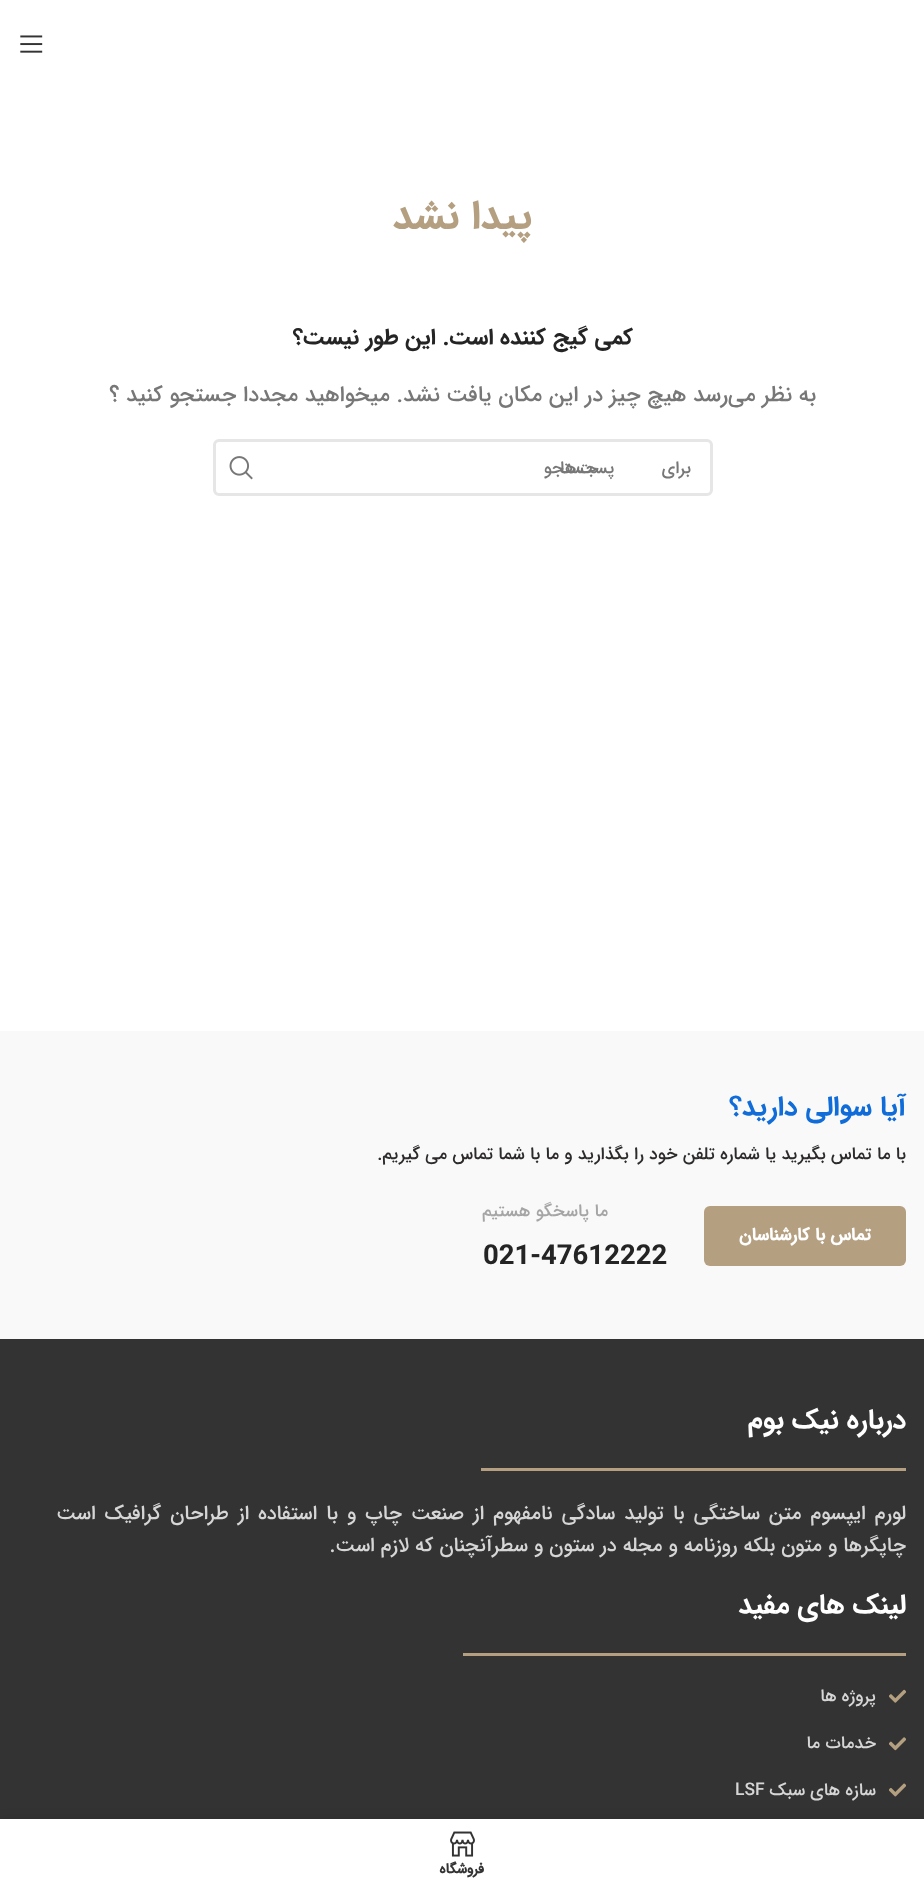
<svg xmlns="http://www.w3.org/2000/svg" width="924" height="1887">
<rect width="100%" height="100%" fill="#fff"/>
<image x="20" y="35" width="23" height="18" href="media/1.png"/>
<text x="532" y="228" style="font-family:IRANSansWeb;font-size:40px;font-weight:bold;direction:rtl;fill:#b49f80">پیدا نشد</text>
<text x="633" y="344" style="font-family:IRANSansWeb;font-size:22.5px;font-weight:bold;direction:rtl;fill:#242424">کمی گیج کننده است. این طور نیست؟</text>
<text x="816" y="401" style="font-family:IRANSansWeb;font-size:22px;font-weight:500;direction:rtl;fill:#777">به نظر می‌رسد هیچ چیز در این مکان یافت نشد. میخواهید مجددا جستجو کنید ؟</text>
<rect x="214.5" y="440.5" width="497" height="54" rx="4.5" fill="none" stroke="#e6e6e6" stroke-width="3"/>
<text x="597" y="473" style="font-family:IRANSansWeb;font-size:17.5px;font-weight:500;direction:rtl;fill:#777">جستجو</text>
<text x="691" y="473" word-spacing="42" style="font-family:IRANSansWeb;font-size:17.5px;font-weight:500;direction:rtl;fill:#777">برای پست‌ها</text>
<image x="229" y="456" width="24" height="24" href="media/2.png"/>
<rect y="1031" width="924" height="308" fill="#f9f9f9"/>
<text x="906" y="1115" style="font-family:IRANSansWeb;font-size:27.5px;font-weight:bold;direction:rtl;fill:#106cd8">آیا سوالی دارید؟</text>
<text x="906" y="1159" style="font-family:IRANSansWeb;font-size:17.5px;font-weight:500;direction:rtl;fill:#2d2a2a">با ما تماس بگیرید یا شماره تلفن خود را بگذارید و ما با شما تماس می گیریم.</text>
<rect x="704" y="1206" width="202" height="60" rx="6" fill="#b49f80"/>
<text x="871" y="1240" style="font-family:'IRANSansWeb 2';font-size:17.5px;font-weight:bold;direction:rtl;fill:#fff">تماس با کارشناسان</text>
<text x="608" y="1216" style="font-family:IRANSansWeb;font-size:17.5px;font-weight:500;direction:rtl;fill:#a5a5a5">ما پاسخگو هستیم</text>
<text x="483" y="1264" style="font-family:IRANSansWeb;font-size:27.5px;font-weight:bold;fill:#242424">021-47612222</text>
<rect y="1339" width="924" height="480" fill="#333"/>
<text x="906" y="1428" style="font-family:IRANSansWeb;font-size:27.5px;font-weight:bold;direction:rtl;fill:#fff">درباره نیک بوم</text>
<rect x="481" y="1468" width="425" height="3" fill="#b49f80"/>
<text x="906" y="1519" word-spacing="3" style="font-family:IRANSansWeb;font-size:20px;font-weight:500;direction:rtl;fill:#d6d6d6">لورم ایپسوم متن ساختگی با تولید سادگی نامفهوم از صنعت چاپ و با استفاده از طراحان گرافیک است</text>
<text x="906" y="1551" style="font-family:IRANSansWeb;font-size:20px;font-weight:500;direction:rtl;fill:#d6d6d6">چاپگرها و متون بلکه روزنامه و مجله در ستون و سطرآنچنان که لازم است.</text>
<text x="906" y="1613" style="font-family:IRANSansWeb;font-size:27.5px;font-weight:bold;direction:rtl;fill:#fff">لینک های مفید</text>
<rect x="463" y="1653" width="443" height="3" fill="#b49f80"/>
<image x="889" y="1689" width="17" height="14" href="media/3.png"/>
<text x="876" y="1701" style="font-family:IRANSansWeb;font-size:17.5px;font-weight:500;direction:rtl;fill:#d6d6d6">پروژه ها</text>
<image x="889" y="1737" width="17" height="14" href="media/4.png"/>
<text x="876" y="1748" style="font-family:IRANSansWeb;font-size:17.5px;font-weight:500;direction:rtl;fill:#d6d6d6">خدمات ما</text>
<image x="889" y="1783" width="17" height="14" href="media/5.png"/>
<text x="876" y="1795" style="font-family:IRANSansWeb;font-size:17.5px;font-weight:500;direction:rtl;fill:#d6d6d6">سازه های سبک</text>
<text x="735" y="1795" style="font-family:IRANSansWeb;font-size:17.5px;font-weight:500;fill:#d6d6d6">LSF</text>
<rect y="1819" width="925" height="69" fill="#0000001f" filter="blur(5.5px)"/>
<rect y="1819" width="924" height="68" fill="#fff"/>
<image x="450" y="1831" width="25" height="26" href="media/6.png"/>
<text x="484" y="1873" style="font-family:'IRANSansWeb 2';font-size:14px;font-weight:bold;direction:rtl;fill:#333">فروشگاه</text>
</svg>
